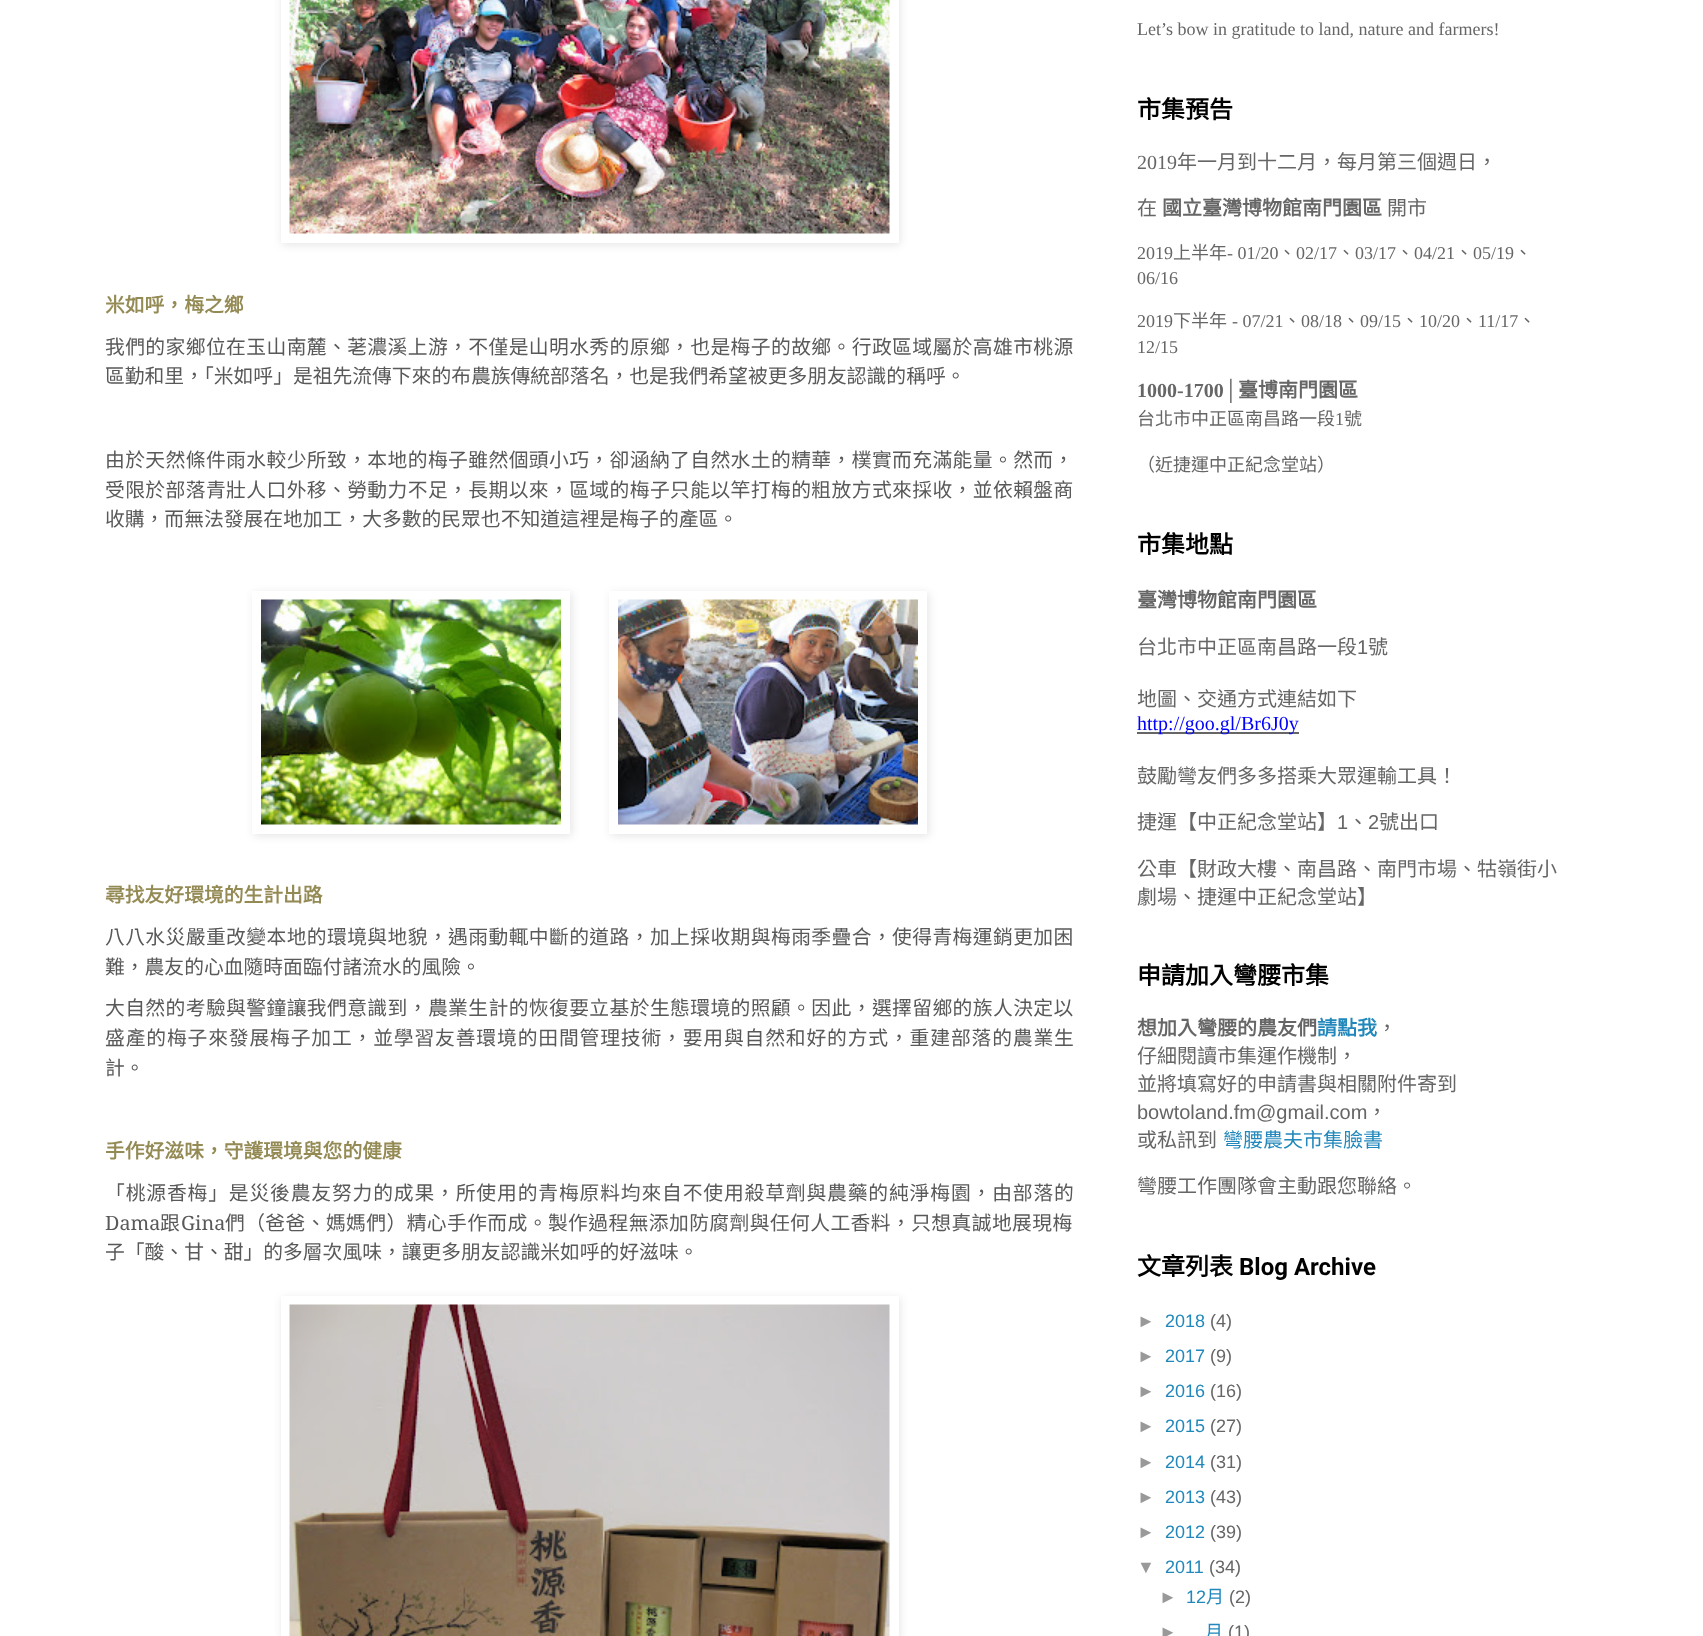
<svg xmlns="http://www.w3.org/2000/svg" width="1703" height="1636">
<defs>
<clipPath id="clip1"><path d="M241 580h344v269h-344zm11 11h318v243h-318z" clip-rule="evenodd"/></clipPath>
<clipPath id="clip2"><path d="M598 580h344v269h-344zm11 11h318v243h-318z" clip-rule="evenodd"/></clipPath>
</defs>
<rect width="100%" height="100%" fill="#fff"/>
<rect x="282" y="-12" width="618" height="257" fill="#0000001a" filter="blur(4px)"/>
<rect x="281" width="618" height="243" fill="#fff"/>
<image x="289" y="0" width="601" height="234" href="media/1.png"/>
<text x="105" y="312" style="font-family:Noto Sans CJK TC;font-size:19.8px;font-weight:bold;fill:#948a54">米如呼，梅之鄉</text>
<text x="105" y="354" style="font-family:Noto Sans CJK TC;font-size:19.8px;letter-spacing:0.4px;fill:#595959">我們的家鄉位在玉山南麓、荖濃溪上游，不僅是山明水秀的原鄉，也是梅子的故鄉。行政區域屬於高雄市桃源</text>
<text x="105" y="383" style="font-family:Noto Sans CJK TC;font-size:19.8px;fill:#595959">區勤和里，「米如呼」是祖先流傳下來的布農族傳統部落名，也是我們希望被更多朋友認識的稱呼。</text>
<text x="105" y="467" style="font-family:Noto Sans CJK TC;font-size:19.8px;letter-spacing:0.4px;fill:#595959">由於天然條件雨水較少所致，本地的梅子雖然個頭小巧，卻涵納了自然水土的精華，樸實而充滿能量。然而，</text>
<text x="105" y="497" style="font-family:Noto Sans CJK TC;font-size:19.8px;letter-spacing:0.4px;fill:#595959">受限於部落青壯人口外移、勞動力不足，長期以來，區域的梅子只能以竿打梅的粗放方式來採收，並依賴盤商</text>
<text x="105" y="526" style="font-family:Noto Sans CJK TC;font-size:19.8px;fill:#595959">收購，而無法發展在地加工，大多數的民眾也不知道這裡是梅子的產區。</text>
<g clip-path="url(#clip1)">
<rect x="254" y="593" width="318" height="243" fill="#0000001a" filter="blur(4px)"/>
</g>
<g clip-path="url(#clip2)">
<rect x="611" y="593" width="318" height="243" fill="#0000001a" filter="blur(4px)"/>
</g>
<image x="261" y="599" width="300" height="226" href="media/2.png"/>
<image x="618" y="599" width="300" height="226" href="media/3.png"/>
<text x="105" y="902" style="font-family:Noto Sans CJK TC;font-size:19.8px;font-weight:bold;fill:#948a54">尋找友好環境的生計出路</text>
<text x="105" y="944" style="font-family:Noto Sans CJK TC;font-size:19.8px;letter-spacing:0.4px;fill:#595959">八八水災嚴重改變本地的環境與地貌，遇雨動輒中斷的道路，加上採收期與梅雨季疊合，使得青梅運銷更加困</text>
<text x="105" y="974" style="font-family:Noto Sans CJK TC;font-size:19.8px;fill:#595959">難，農友的心血隨時面臨付諸流水的風險。</text>
<text x="105" y="1015" style="font-family:Noto Sans CJK TC;font-size:19.8px;letter-spacing:0.4px;fill:#595959">大自然的考驗與警鐘讓我們意識到，農業生計的恢復要立基於生態環境的照顧。因此，選擇留鄉的族人決定以</text>
<text x="105" y="1045" style="font-family:Noto Sans CJK TC;font-size:19.8px;letter-spacing:0.85px;fill:#595959">盛產的梅子來發展梅子加工，並學習友善環境的田間管理技術，要用與自然和好的方式，重建部落的農業生</text>
<text x="105" y="1075" style="font-family:Noto Sans CJK TC;font-size:19.8px;fill:#595959">計。</text>
<text x="105" y="1158" style="font-family:Noto Sans CJK TC;font-size:19.8px;font-weight:bold;fill:#948a54">手作好滋味，守護環境與您的健康</text>
<text x="105" y="1200" style="font-family:Noto Sans CJK TC;font-size:19.8px;letter-spacing:0.85px;fill:#595959">「桃源香梅」是災後農友努力的成果，所使用的青梅原料均來自不使用殺草劑與農藥的純淨梅園，由部落的</text>
<text x="105" y="1230" style="font-family:Noto Serif;font-size:19.8px;fill:#595959">Dama</text>
<text x="160" y="1230" style="font-family:Noto Sans CJK TC;font-size:19.8px;fill:#595959">跟</text>
<text x="181" y="1230" style="font-family:Noto Serif;font-size:19.8px;fill:#595959">Gina</text>
<text x="225" y="1230" style="font-family:Noto Sans CJK TC;font-size:19.8px;letter-spacing:0.4px;fill:#595959">們（爸爸、媽媽們）精心手作而成。製作過程無添加防腐劑與任何人工香料，只想真誠地展現梅</text>
<text x="105" y="1259" style="font-family:Noto Sans CJK TC;font-size:19.8px;fill:#595959">子「酸、甘、甜」的多層次風味，讓更多朋友認識米如呼的好滋味。</text>
<rect x="282" y="1298" width="618" height="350" fill="#0000001a" filter="blur(4px)"/>
<rect x="281" y="1296" width="618" height="340" fill="#fff"/>
<image x="289" y="1304" width="601" height="332" href="media/4.png"/>
<text x="1137" y="35" style="font-family:Liberation Serif;font-size:18px;fill:#666">Let’s bow in gratitude to land, nature and farmers!</text>
<text x="1137" y="118" style="font-family:Noto Sans CJK TC;font-size:24px;font-weight:bold;fill:#000">市集預告</text>
<text x="1137" y="169" style="font-family:Liberation Serif;font-size:20px;fill:#666">2019</text>
<text x="1177" y="169" style="font-family:Noto Sans CJK TC;font-size:20px;fill:#666">年一月到十二月，每月第三個週日，</text>
<text x="1137" y="215" style="font-family:Noto Sans CJK TC;font-size:20px;fill:#666">在</text>
<text x="1162" y="215" style="font-family:Noto Sans CJK TC;font-size:20px;font-weight:bold;fill:#666">國立臺灣博物館南門園區</text>
<text x="1387" y="215" style="font-family:Noto Sans CJK TC;font-size:20px;fill:#666">開市</text>
<text x="1137" y="259" style="font-family:Liberation Serif;font-size:18px;fill:#666">2019</text>
<text x="1173" y="259" style="font-family:Noto Sans CJK TC;font-size:18px;fill:#666">上半年</text>
<text x="1227" y="259" style="font-family:Liberation Serif;font-size:18px;fill:#666">- 01/20</text>
<text x="1278" y="259" style="font-family:Noto Sans CJK TC;font-size:18px;fill:#666">、</text>
<text x="1296" y="259" style="font-family:Liberation Serif;font-size:18px;fill:#666">02/17</text>
<text x="1337" y="259" style="font-family:Noto Sans CJK TC;font-size:18px;fill:#666">、</text>
<text x="1355" y="259" style="font-family:Liberation Serif;font-size:18px;fill:#666">03/17</text>
<text x="1396" y="259" style="font-family:Noto Sans CJK TC;font-size:18px;fill:#666">、</text>
<text x="1414" y="259" style="font-family:Liberation Serif;font-size:18px;fill:#666">04/21</text>
<text x="1455" y="259" style="font-family:Noto Sans CJK TC;font-size:18px;fill:#666">、</text>
<text x="1473" y="259" style="font-family:Liberation Serif;font-size:18px;fill:#666">05/19</text>
<text x="1514" y="259" style="font-family:Noto Sans CJK TC;font-size:18px;fill:#666">、</text>
<text x="1137" y="284" style="font-family:Liberation Serif;font-size:18px;fill:#666">06/16</text>
<text x="1137" y="327" style="font-family:Liberation Serif;font-size:18px;fill:#666">2019</text>
<text x="1173" y="327" style="font-family:Noto Sans CJK TC;font-size:18px;fill:#666">下半年</text>
<text x="1232" y="327" style="font-family:Liberation Serif;font-size:18px;fill:#666">- 07/21</text>
<text x="1283" y="327" style="font-family:Noto Sans CJK TC;font-size:18px;fill:#666">、</text>
<text x="1301" y="327" style="font-family:Liberation Serif;font-size:18px;fill:#666">08/18</text>
<text x="1342" y="327" style="font-family:Noto Sans CJK TC;font-size:18px;fill:#666">、</text>
<text x="1360" y="327" style="font-family:Liberation Serif;font-size:18px;fill:#666">09/15</text>
<text x="1401" y="327" style="font-family:Noto Sans CJK TC;font-size:18px;fill:#666">、</text>
<text x="1419" y="327" style="font-family:Liberation Serif;font-size:18px;fill:#666">10/20</text>
<text x="1460" y="327" style="font-family:Noto Sans CJK TC;font-size:18px;fill:#666">、</text>
<text x="1478" y="327" style="font-family:Liberation Serif;font-size:18px;fill:#666">11/17</text>
<text x="1518" y="327" style="font-family:Noto Sans CJK TC;font-size:18px;fill:#666">、</text>
<text x="1137" y="353" style="font-family:Liberation Serif;font-size:18px;fill:#666">12/15</text>
<text x="1137" y="397" style="font-family:Liberation Serif;font-size:20px;font-weight:bold;fill:#666">1000-1700│</text>
<text x="1238" y="397" style="font-family:Noto Sans CJK TC;font-size:20px;font-weight:bold;fill:#666">臺博南門園區</text>
<text x="1137" y="425" style="font-family:Noto Sans CJK TC;font-size:18px;fill:#666">台北市中正區南昌路一段</text>
<text x="1335" y="425" style="font-family:Liberation Serif;font-size:18px;fill:#666">1</text>
<text x="1344" y="425" style="font-family:Noto Sans CJK TC;font-size:18px;fill:#666">號</text>
<text x="1137" y="471" style="font-family:Noto Sans CJK TC;font-size:18px;fill:#666">（近捷運中正紀念堂站）</text>
<text x="1137" y="553" style="font-family:Noto Sans CJK TC;font-size:24px;font-weight:bold;fill:#000">市集地點</text>
<text x="1137" y="607" style="font-family:Noto Sans CJK TC;font-size:20px;font-weight:bold;fill:#666">臺灣博物館南門園區</text>
<text x="1137" y="654" style="font-family:Noto Sans CJK TC;font-size:20px;fill:#666">台北市中正區南昌路一段</text>
<text x="1357" y="654" style="font-family:Liberation Sans;font-size:20px;fill:#666">1</text>
<text x="1368" y="654" style="font-family:Noto Sans CJK TC;font-size:20px;fill:#666">號</text>
<text x="1137" y="706" style="font-family:Noto Sans CJK TC;font-size:20px;fill:#666">地圖、交通方式連結如下</text>
<rect x="1137" y="732" width="162" height="2" fill="#666"/>
<text x="1137" y="730" style="font-family:Liberation Serif;font-size:20px;fill:#00f">http://goo.gl/Br6J0y</text>
<text x="1137" y="783" style="font-family:Noto Sans CJK TC;font-size:20px;fill:#666">鼓勵彎友們多多搭乘大眾運輸工具！</text>
<text x="1137" y="829" style="font-family:Noto Sans CJK TC;font-size:20px;fill:#666">捷運【中正紀念堂站】</text>
<text x="1337" y="829" style="font-family:Liberation Sans;font-size:20px;fill:#666">1</text>
<text x="1348" y="829" style="font-family:Noto Sans CJK TC;font-size:20px;fill:#666">、</text>
<text x="1368" y="829" style="font-family:Liberation Sans;font-size:20px;fill:#666">2</text>
<text x="1379" y="829" style="font-family:Noto Sans CJK TC;font-size:20px;fill:#666">號出口</text>
<text x="1137" y="876" style="font-family:Noto Sans CJK TC;font-size:20px;fill:#666">公車【財政大樓、南昌路、南門市場、牯嶺街小</text>
<text x="1137" y="904" style="font-family:Noto Sans CJK TC;font-size:20px;fill:#666">劇場、捷運中正紀念堂站】</text>
<text x="1137" y="984" style="font-family:Noto Sans CJK TC;font-size:24px;font-weight:bold;fill:#000">申請加入彎腰市集</text>
<text x="1137" y="1035" style="font-family:Noto Sans CJK TC;font-size:20px;font-weight:bold;fill:#666">想加入彎腰的農友們</text>
<text x="1317" y="1035" style="font-family:Noto Sans CJK TC;font-size:20px;font-weight:bold;fill:#28b">請點我</text>
<text x="1377" y="1035" style="font-family:Noto Sans CJK TC;font-size:20px;fill:#666">，</text>
<text x="1137" y="1063" style="font-family:Noto Sans CJK TC;font-size:20px;fill:#666">仔細閱讀市集運作機制，</text>
<text x="1137" y="1091" style="font-family:Noto Sans CJK TC;font-size:20px;fill:#666">並將填寫好的申請書與相關附件寄到</text>
<text x="1137" y="1119" style="font-family:Liberation Sans;font-size:20px;fill:#666">bowtoland.fm@gmail.com</text>
<text x="1367" y="1119" style="font-family:Noto Sans CJK TC;font-size:20px;fill:#666">，</text>
<text x="1137" y="1147" style="font-family:Noto Sans CJK TC;font-size:20px;fill:#666">或私訊到</text>
<text x="1223" y="1147" style="font-family:Noto Sans CJK TC;font-size:20px;fill:#28b">彎腰農夫市集臉書</text>
<text x="1137" y="1193" style="font-family:Noto Sans CJK TC;font-size:20px;fill:#666">彎腰工作團隊會主動跟您聯絡。</text>
<text x="1137" y="1275" style="font-family:Noto Sans CJK TC;font-size:24px;font-weight:bold;fill:#000">文章列表</text>
<text x="1239" y="1275" style="font-family:Roboto;font-size:24px;font-weight:bold;fill:#000">Blog Archive</text>
<text x="1137" y="1327" style="font-family:Liberation Sans;font-size:18px;fill:#999">►</text>
<text x="1165" y="1327" style="font-family:Liberation Sans;font-size:18px;fill:#28b">2018</text>
<text x="1210" y="1327" style="font-family:Liberation Sans;font-size:18px;fill:#666">(4)</text>
<text x="1137" y="1362" style="font-family:Liberation Sans;font-size:18px;fill:#999">►</text>
<text x="1165" y="1362" style="font-family:Liberation Sans;font-size:18px;fill:#28b">2017</text>
<text x="1210" y="1362" style="font-family:Liberation Sans;font-size:18px;fill:#666">(9)</text>
<text x="1137" y="1397" style="font-family:Liberation Sans;font-size:18px;fill:#999">►</text>
<text x="1165" y="1397" style="font-family:Liberation Sans;font-size:18px;fill:#28b">2016</text>
<text x="1210" y="1397" style="font-family:Liberation Sans;font-size:18px;fill:#666">(16)</text>
<text x="1137" y="1432" style="font-family:Liberation Sans;font-size:18px;fill:#999">►</text>
<text x="1165" y="1432" style="font-family:Liberation Sans;font-size:18px;fill:#28b">2015</text>
<text x="1210" y="1432" style="font-family:Liberation Sans;font-size:18px;fill:#666">(27)</text>
<text x="1137" y="1468" style="font-family:Liberation Sans;font-size:18px;fill:#999">►</text>
<text x="1165" y="1468" style="font-family:Liberation Sans;font-size:18px;fill:#28b">2014</text>
<text x="1210" y="1468" style="font-family:Liberation Sans;font-size:18px;fill:#666">(31)</text>
<text x="1137" y="1503" style="font-family:Liberation Sans;font-size:18px;fill:#999">►</text>
<text x="1165" y="1503" style="font-family:Liberation Sans;font-size:18px;fill:#28b">2013</text>
<text x="1210" y="1503" style="font-family:Liberation Sans;font-size:18px;fill:#666">(43)</text>
<text x="1137" y="1538" style="font-family:Liberation Sans;font-size:18px;fill:#999">►</text>
<text x="1165" y="1538" style="font-family:Liberation Sans;font-size:18px;fill:#28b">2012</text>
<text x="1210" y="1538" style="font-family:Liberation Sans;font-size:18px;fill:#666">(39)</text>
<text x="1137" y="1573" style="font-family:Liberation Sans;font-size:18px;fill:#999">▼</text>
<text x="1165" y="1573" style="font-family:Liberation Sans;font-size:18px;fill:#28b">2011</text>
<text x="1209" y="1573" style="font-family:Liberation Sans;font-size:18px;fill:#666">(34)</text>
<text x="1159" y="1603" style="font-family:Liberation Sans;font-size:18px;fill:#999">►</text>
<text x="1186" y="1603" style="font-family:Liberation Sans;font-size:18px;fill:#28b">12</text>
<text x="1206" y="1603" style="font-family:Noto Sans CJK TC;font-size:18px;fill:#28b">月</text>
<text x="1229" y="1603" style="font-family:Liberation Sans;font-size:18px;fill:#666">(2)</text>
<text x="1159" y="1638" style="font-family:Liberation Sans;font-size:18px;fill:#999">►</text>
<text x="1205" y="1638" style="font-family:Noto Sans CJK TC;font-size:18px;fill:#28b">月</text>
<text x="1228" y="1638" style="font-family:Liberation Sans;font-size:18px;fill:#666">(1)</text>
</svg>
